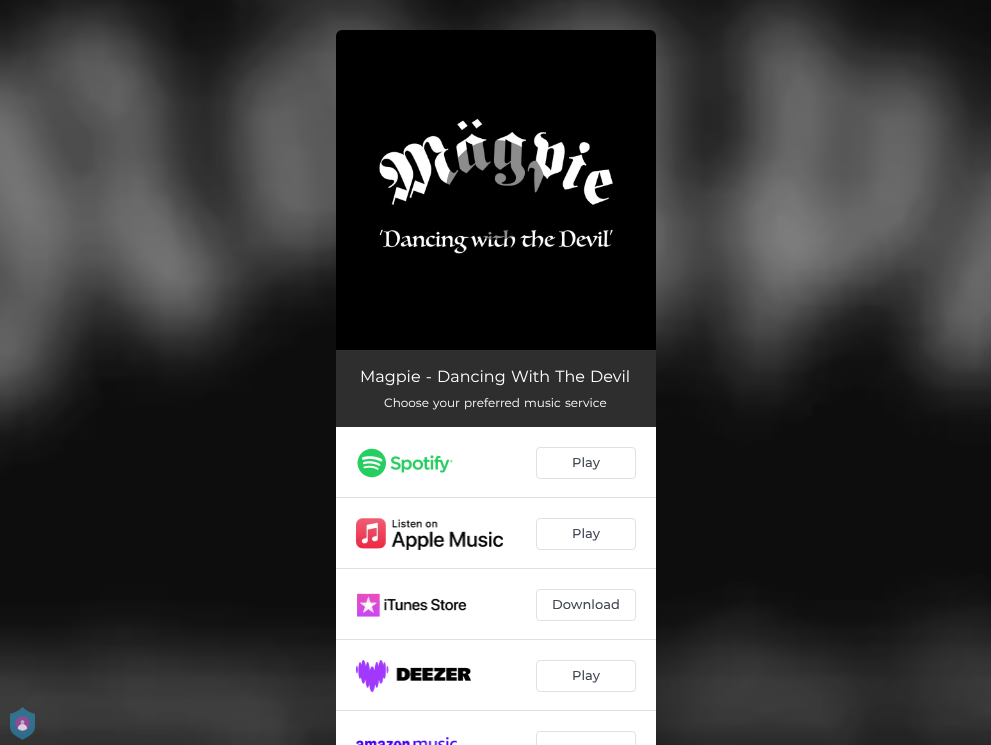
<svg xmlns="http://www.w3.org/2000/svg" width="991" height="745">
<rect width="100%" height="100%" fill="#fff"/>
<image x="0" y="0" width="991" height="745" href="media/1.png"/>
<image x="336" y="30" width="320" height="320" href="media/2.png"/>
<circle cx="496" cy="190" r="50" fill="#00000073"/>
<rect x="336" y="350" width="320" height="77" fill="#2e2e2e"/>
<text x="360" y="382" word-spacing="1" style="font-family:Montserrat;font-size:16px;fill:#fff">Magpie - Dancing With The Devil</text>
<text x="384" y="407" word-spacing="1" style="font-family:Montserrat;font-size:12px;fill:#fff">Choose your preferred music service</text>
<rect x="336" y="427" width="320" height="318" fill="#fff"/>
<rect x="336" y="497" width="320" height="1" fill="#e1e1e4"/>
<image x="357" y="448" width="96" height="30" href="media/3.png"/>
<rect x="536.5" y="447.5" width="99" height="31" rx="3.5" fill="none" stroke="#e1e1e4"/>
<text x="572" y="467" style="font-family:Montserrat;font-size:13px;font-weight:500;fill:#414754">Play</text>
<rect x="336" y="568" width="320" height="1" fill="#e1e1e4"/>
<image x="356" y="518" width="147" height="32" href="media/4.png"/>
<rect x="536.5" y="518.5" width="99" height="31" rx="3.5" fill="none" stroke="#e1e1e4"/>
<text x="572" y="538" style="font-family:Montserrat;font-size:13px;font-weight:500;fill:#414754">Play</text>
<rect x="336" y="639" width="320" height="1" fill="#e1e1e4"/>
<image x="357" y="593" width="110" height="24" href="media/5.png"/>
<rect x="536.5" y="589.5" width="99" height="31" rx="3.5" fill="none" stroke="#e1e1e4"/>
<text x="552" y="609" style="font-family:Montserrat;font-size:13px;font-weight:500;fill:#414754">Download</text>
<rect x="336" y="710" width="320" height="1" fill="#e1e1e4"/>
<image x="356" y="660" width="115" height="32" href="media/6.png"/>
<rect x="536.5" y="660.5" width="99" height="31" rx="3.5" fill="none" stroke="#e1e1e4"/>
<text x="572" y="680" style="font-family:Montserrat;font-size:13px;font-weight:500;fill:#414754">Play</text>
<image x="356" y="737" width="101" height="8" href="media/7.png"/>
<rect x="536.5" y="731.5" width="99" height="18" rx="3.5" fill="none" stroke="#e1e1e4"/>
<image x="10" y="707" width="25" height="33" href="media/8.png"/>
</svg>
